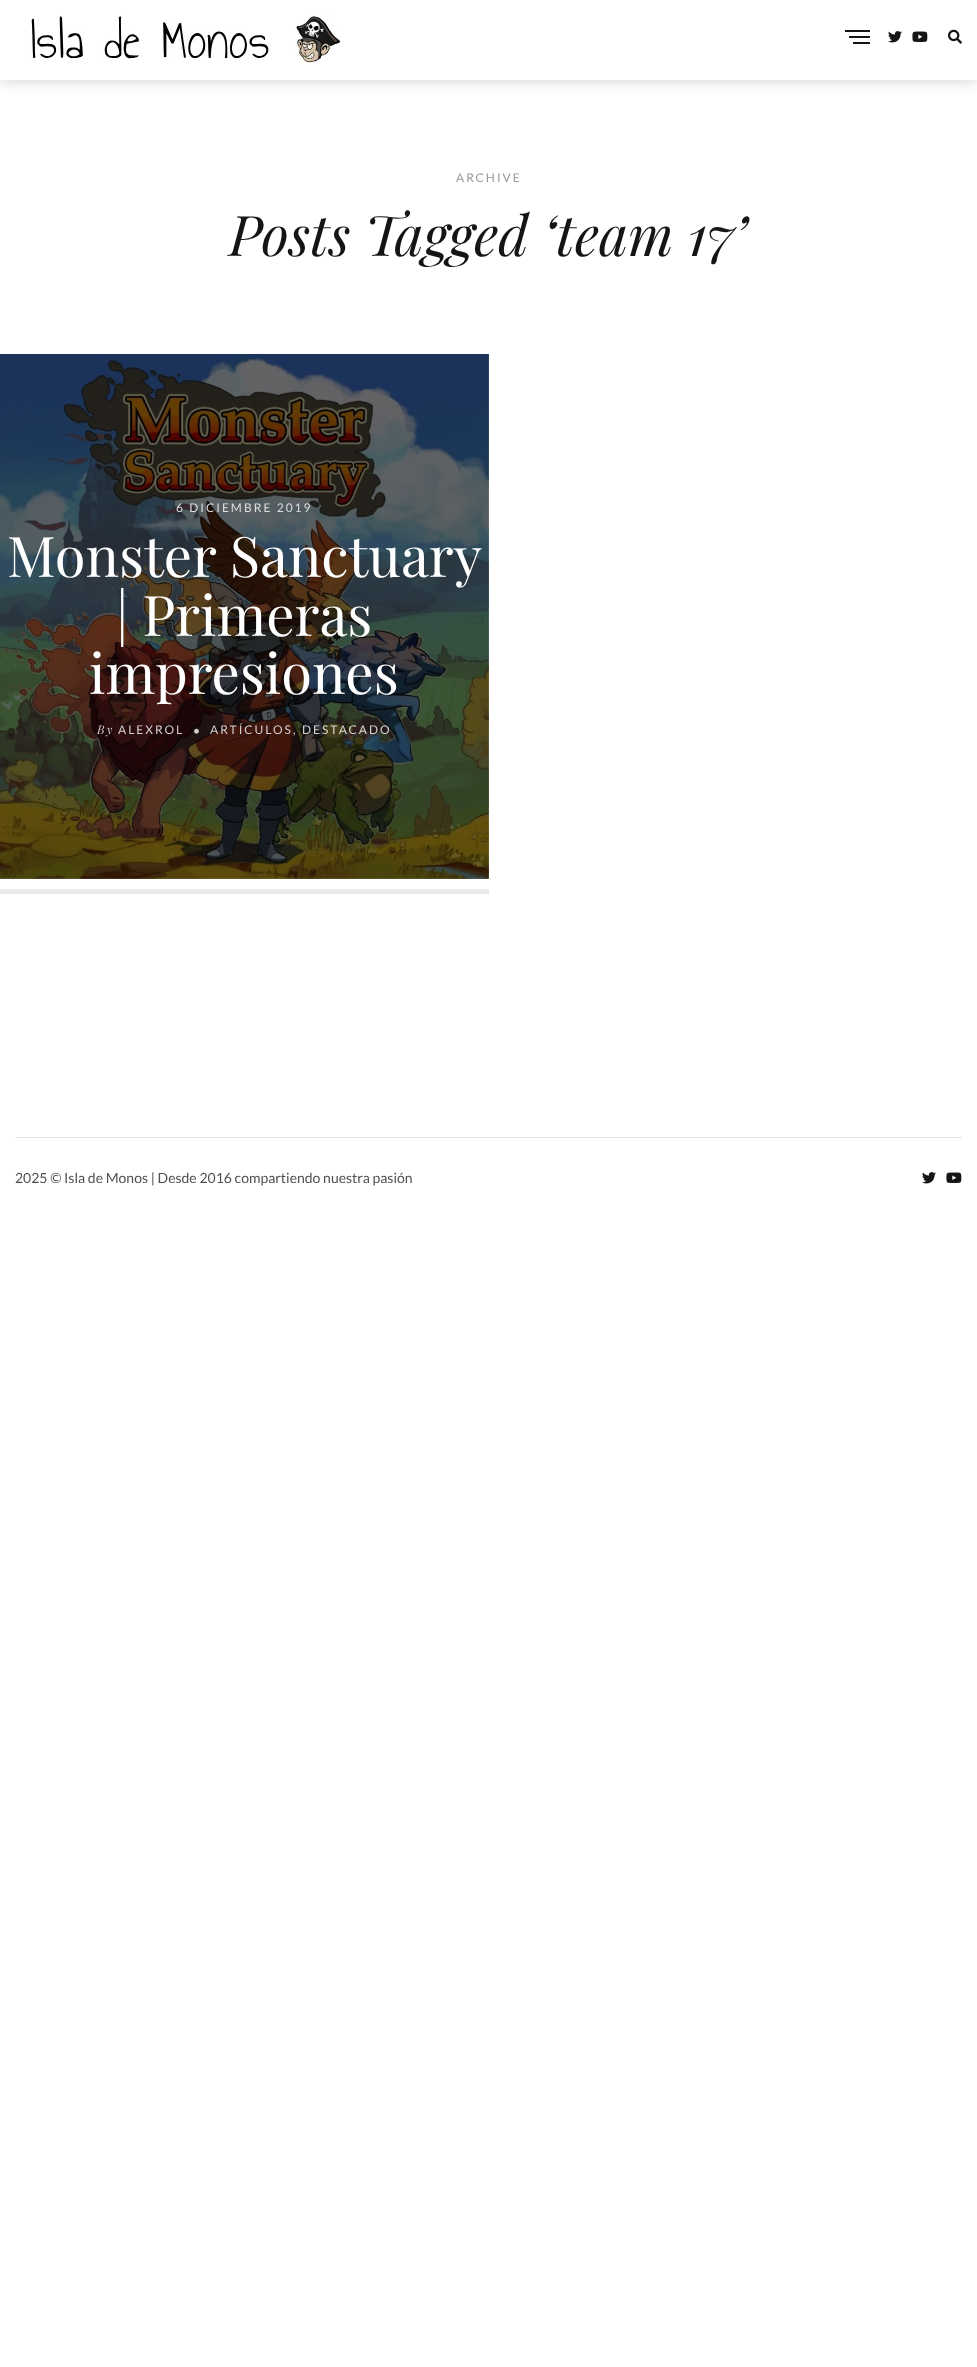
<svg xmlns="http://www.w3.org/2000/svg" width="977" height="2367">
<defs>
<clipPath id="clip1"><rect x="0" y="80" width="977" height="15"/></clipPath>
</defs>
<rect width="100%" height="100%" fill="#fff"/>
<g clip-path="url(#clip1)">
<rect width="977" height="80" fill="#cecece" filter="blur(7.5px)"/>
</g>
<image x="31" y="15" width="310" height="48" href="media/1.png"/>
<rect x="845" y="30" width="25" height="2" fill="#151515"/>
<rect x="849" y="36" width="21" height="2" fill="#151515"/>
<rect x="853" y="42" width="17" height="2" fill="#151515"/>
<image x="888" y="31" width="14" height="12" href="media/2.png"/>
<image x="912" y="31" width="16" height="11" href="media/3.png"/>
<image x="948" y="29" width="14" height="15" href="media/4.png"/>
<text x="456" y="182" style="font-family:Lato;font-size:12px;letter-spacing:2px;fill:#999">ARCHIVE</text>
<text x="229" y="256" style="font-family:Playfair Display;font-size:56px;font-style:italic;fill:#151515">Posts Tagged ‘team 17’</text>
<rect y="889" width="489" height="5" fill="#ebebeb"/>
<image x="0" y="354" width="489" height="525" href="media/5.png"/>
<text x="176" y="512" style="font-family:Lato;font-size:12px;letter-spacing:2px;fill:#dcddde">6 DICIEMBRE 2019</text>
<text x="7" y="577" style="font-family:Playfair Display;font-size:56px;fill:#fff">Monster Sanctuary</text>
<text x="116" y="636" style="font-family:Playfair Display;font-size:56px;fill:#fff">| Primeras</text>
<text x="89" y="694" style="font-family:Playfair Display;font-size:56px;fill:#fff">impresiones</text>
<text x="97" y="734" style="font-family:Playfair Display;font-size:12px;font-style:italic;letter-spacing:2px;fill:#d2cdce">By</text>
<text x="118" y="734" style="font-family:Lato;font-size:12px;letter-spacing:2px;fill:#d2cdce">ALEXROL</text>
<image x="194" y="728" width="5" height="6" href="media/6.png"/>
<text x="210" y="734" style="font-family:Lato;font-size:12px;letter-spacing:2px;fill:#d2cdce">ARTÍCULOS</text>
<text x="293" y="734" style="font-family:Lato;font-size:12px;letter-spacing:2px;fill:#d2cdce">,</text>
<text x="302" y="734" style="font-family:Lato;font-size:12px;letter-spacing:2px;fill:#d5d4d2">DESTACADO</text>
<rect x="15" y="1137" width="947" height="1" fill="#e5e5e5"/>
<text x="15" y="1183" style="font-family:Lato;font-size:14px;fill:#505050">2025 © Isla de Monos | Desde 2016 compartiendo nuestra pasión</text>
<image x="922" y="1172" width="14" height="12" href="media/2.png"/>
<image x="946" y="1172" width="16" height="11" href="media/3.png"/>
</svg>
